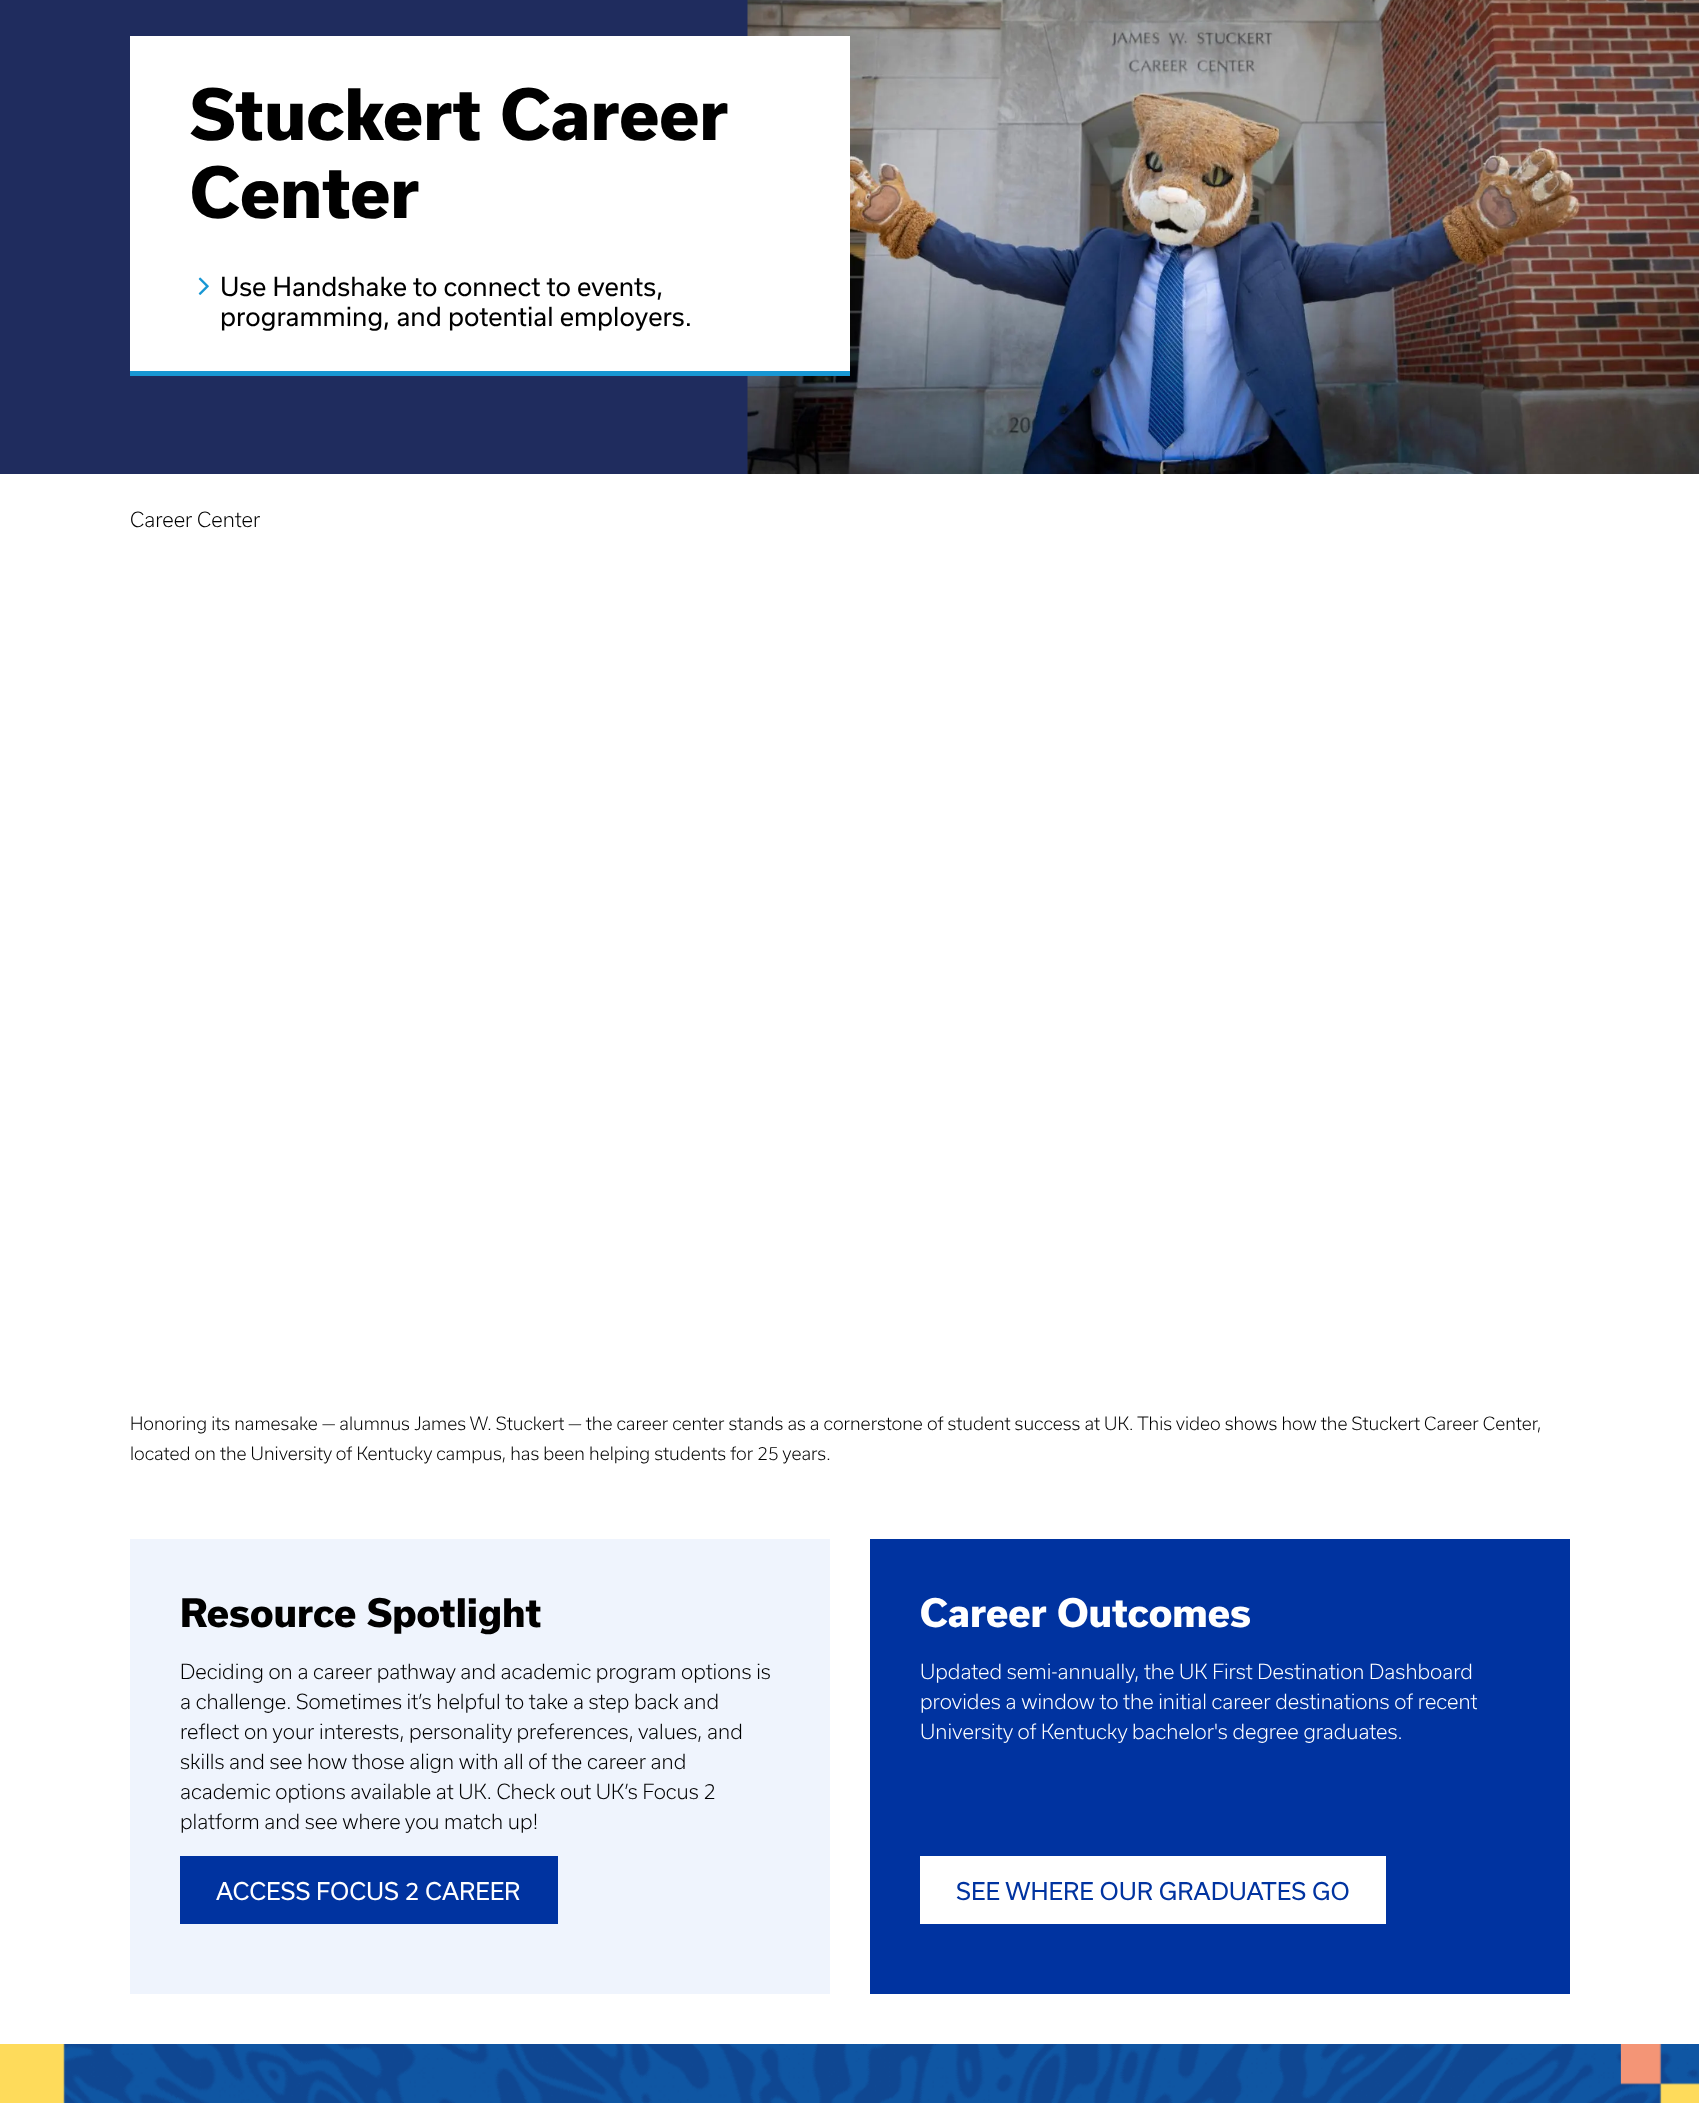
<svg xmlns="http://www.w3.org/2000/svg" width="1699" height="2103">
<rect width="100%" height="100%" fill="#fff"/>
<rect width="748" height="474" fill="#1f2c5e"/>
<image x="747" y="0" width="952" height="474" href="media/2.png"/>
<rect x="130" y="36" width="720" height="335" fill="#fff"/>
<rect x="130" y="371" width="720" height="5" fill="#1897d4"/>
<text x="190" y="140" style="font-family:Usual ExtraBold;font-size:67.5px;font-weight:800;fill:#000">Stuckert Career</text>
<text x="190" y="218" style="font-family:Usual ExtraBold;font-size:67.5px;font-weight:800;fill:#000">Center</text>
<image x="198" y="277" width="11" height="18" href="media/1.png"/>
<text x="220" y="296" style="font-family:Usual;font-size:25px;fill:#000">Use Handshake to connect to events,</text>
<text x="220" y="326" style="font-family:Usual;font-size:25px;fill:#000">programming, and potential employers.</text>
<text x="130" y="527" style="font-family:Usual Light;font-size:20px;font-weight:300;fill:#000">Career Center</text>
<text x="130" y="1430" style="font-family:Usual Light;font-size:17.5px;font-weight:300;fill:#000">Honoring its namesake — alumnus James W. Stuckert — the career center stands as a cornerstone of student success at UK. This video shows how the Stuckert Career Center,</text>
<text x="130" y="1460" style="font-family:Usual Light;font-size:17.5px;font-weight:300;fill:#000">located on the University of Kentucky campus, has been helping students for 25 years.</text>
<rect x="130" y="1539" width="700" height="455" fill="#eff4fd"/>
<text x="180" y="1627" style="font-family:Usual ExtraBold;font-size:37.5px;font-weight:800;fill:#000">Resource Spotlight</text>
<text x="180" y="1679" style="font-family:Usual Light;font-size:20px;font-weight:300;fill:#000">Deciding on a career pathway and academic program options is</text>
<text x="180" y="1709" style="font-family:Usual Light;font-size:20px;font-weight:300;fill:#000">a challenge. Sometimes it’s helpful to take a step back and</text>
<text x="180" y="1739" style="font-family:Usual Light;font-size:20px;font-weight:300;fill:#000">reflect on your interests, personality preferences, values, and</text>
<text x="180" y="1769" style="font-family:Usual Light;font-size:20px;font-weight:300;fill:#000">skills and see how those align with all of the career and</text>
<text x="180" y="1799" style="font-family:Usual Light;font-size:20px;font-weight:300;fill:#000">academic options available at UK. Check out UK’s Focus 2</text>
<text x="180" y="1829" style="font-family:Usual Light;font-size:20px;font-weight:300;fill:#000">platform and see where you match up!</text>
<rect x="180" y="1856" width="378" height="68" fill="#0033a0"/>
<text x="216" y="1900" style="font-family:Usual;font-size:23.3px;fill:#fff">ACCESS FOCUS 2 CAREER</text>
<rect x="870" y="1539" width="700" height="455" fill="#0033a0"/>
<text x="920" y="1627" style="font-family:Usual ExtraBold;font-size:37.5px;font-weight:800;fill:#fff">Career Outcomes</text>
<text x="920" y="1679" style="font-family:Usual Light;font-size:20px;font-weight:300;fill:#fff">Updated semi-annually, the UK First Destination Dashboard</text>
<text x="920" y="1709" style="font-family:Usual Light;font-size:20px;font-weight:300;fill:#fff">provides a window to the initial career destinations of recent</text>
<text x="920" y="1739" style="font-family:Usual Light;font-size:20px;font-weight:300;fill:#fff">University of Kentucky bachelor's degree graduates.</text>
<rect x="920" y="1856" width="466" height="68" fill="#fff"/>
<text x="956" y="1900" style="font-family:Usual;font-size:23.3px;fill:#0033a0">SEE WHERE OUR GRADUATES GO</text>
<image x="0" y="2044" width="1699" height="59" href="media/3.png"/>
</svg>
